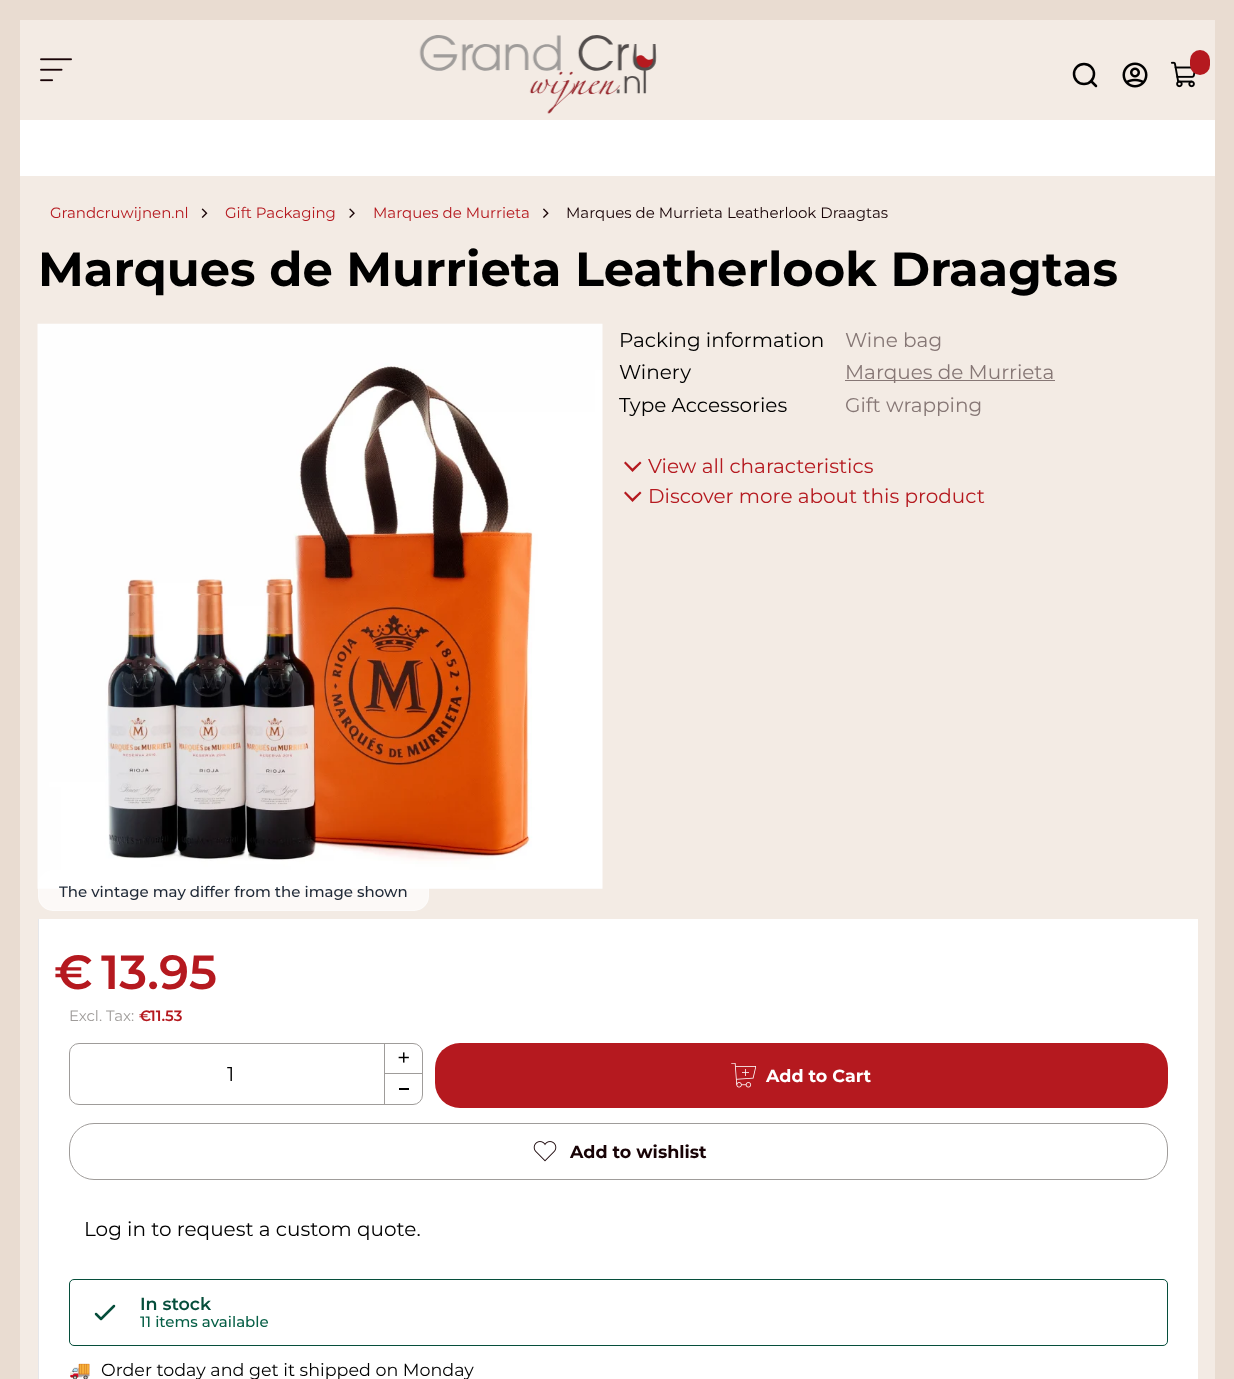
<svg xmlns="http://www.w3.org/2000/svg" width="1234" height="1379">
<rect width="100%" height="100%" fill="#e9dcd1"/>
<rect x="20" y="176" width="1195" height="1203" fill="#f3ebe4"/>
<rect x="20" y="20" width="1195" height="100" fill="#f3ebe4"/>
<image x="40" y="58" width="32" height="24" href="media/1.png"/>
<image x="419" y="35" width="238" height="79" href="media/2.png"/>
<circle cx="1084" cy="74" r="10" fill="none" stroke="#000" stroke-width="2.5"/>
<path d="M1096 86l-5-5" fill="none" stroke="#000" stroke-width="2.5" stroke-linecap="round" stroke-linejoin="round"/>
<image x="1122" y="62" width="26" height="26" href="media/3.png"/>
<image x="1170" y="61" width="26" height="27" href="media/4.png"/>
<rect x="1190" y="50" width="20" height="25" rx="10" fill="#b5191f"/>
<rect x="20" y="120" width="1195" height="56" fill="#fff"/>
<text x="50" y="218" style="font-family:Montserrat;font-size:15px;fill:#b5191f">Grandcruwijnen.nl</text>
<image x="201" y="208" width="7" height="10" href="media/5.png"/>
<text x="225" y="218" style="font-family:Montserrat;font-size:15px;fill:#b5191f">Gift Packaging</text>
<image x="349" y="208" width="6" height="10" href="media/6.png"/>
<text x="373" y="218" style="font-family:Montserrat;font-size:15px;fill:#b5191f">Marques de Murrieta</text>
<image x="543" y="208" width="6" height="10" href="media/7.png"/>
<text x="566" y="218" style="font-family:Montserrat;font-size:15px;fill:#180306">Marques de Murrieta Leatherlook Draagtas</text>
<text x="38" y="286" style="font-family:Montserrat;font-size:48px;font-weight:bold;fill:#000">Marques de Murrieta Leatherlook Draagtas</text>
<text x="619" y="347" style="font-family:Montserrat;font-size:20px;fill:#000">Packing information</text>
<text x="845" y="347" style="font-family:Montserrat;font-size:20px;fill:#867775">Wine bag</text>
<text x="619" y="379" style="font-family:Montserrat;font-size:20px;fill:#000">Winery</text>
<rect x="845" y="380" width="210" height="1" fill="#867775"/>
<text x="845" y="379" style="font-family:Montserrat;font-size:20px;fill:#867775">Marques de Murrieta</text>
<text x="619" y="412" style="font-family:Montserrat;font-size:20px;fill:#000">Type Accessories</text>
<text x="845" y="412" style="font-family:Montserrat;font-size:20px;fill:#867775">Gift wrapping</text>
<path d="M641.5 463l-9 9l-8.5-9l1.5-1.5l7 7l7.5-7zm0 30l-9 9l-8.5-9l1.5-1.5l7 7l7.5-7z" fill="#b5191f" fill-rule="evenodd"/>
<text x="648" y="473" style="font-family:Montserrat;font-size:20px;fill:#b5191f">View all characteristics</text>
<text x="648" y="503" style="font-family:Montserrat;font-size:20px;fill:#b5191f">Discover more about this product</text>
<image x="37" y="323" width="566" height="566" href="media/8.png"/>
<rect x="38" y="870" width="391" height="41" rx="15" fill="#ffffffb3"/>
<rect x="38.5" y="870.5" width="390" height="40" rx="14.5" fill="none" stroke="#ffffff66"/>
<text x="59" y="897" style="font-family:Montserrat;font-size:15px;font-weight:500;fill:#1f2937">The vintage may differ from the image shown</text>
<rect x="39" y="919" width="1159" height="460" fill="#fff"/>
<rect x="38" y="919" width="1" height="460" fill="#e5e7eb"/>
<text x="54" y="989" style="font-family:Montserrat;font-size:48px;font-weight:600;fill:#b5191f">€</text>
<text x="101" y="989" style="font-family:Montserrat;font-size:48px;font-weight:600;fill:#b5191f">13.95</text>
<text x="69" y="1021" style="font-family:Montserrat;font-size:15px;fill:#9f9c9a">Excl. Tax:</text>
<text x="139" y="1021" style="font-family:Montserrat;font-size:15px;font-weight:600;fill:#b5191f">€</text>
<text x="150" y="1021" style="font-family:Montserrat;font-size:15px;font-weight:600;fill:#b5191f">11.53</text>
<rect x="69.5" y="1043.5" width="353" height="61" rx="9.5" fill="none" stroke="#9f9c9a"/>
<text x="227" y="1081" style="font-family:Montserrat;font-size:20px;fill:#000">1</text>
<rect x="384" y="1043" width="1" height="61" fill="#9f9c9a"/>
<rect x="385" y="1073" width="38" height="1" fill="#9f9c9a"/>
<image x="398" y="1052" width="11" height="11" href="media/9.png"/>
<rect x="399" y="1088" width="10" height="2" fill="#000"/>
<rect x="435" y="1043" width="733" height="65" rx="25" fill="#b5191f"/>
<image x="731" y="1063" width="25" height="25" href="media/10.png"/>
<text x="766" y="1082" style="font-family:Montserrat;font-size:17.5px;font-weight:bold;fill:#fff">Add to Cart</text>
<rect x="69.5" y="1123.5" width="1098" height="56" rx="24.5" fill="none" stroke="#9f9c9a"/>
<image x="533" y="1141" width="24" height="21" href="media/11.png"/>
<text x="570" y="1158" style="font-family:Montserrat;font-size:17.5px;font-weight:bold;fill:#180306">Add to wishlist</text>
<text x="84" y="1236" style="font-family:Montserrat;font-size:20px;fill:#000">Log in to request a custom quote.</text>
<rect x="69.5" y="1279.5" width="1098" height="66" rx="4.5" fill="none" stroke="#064e3b"/>
<path d="M96 1314l5 5l13-13" fill="none" stroke="#064e3b" stroke-width="2.5" stroke-linecap="round" stroke-linejoin="round"/>
<text x="140" y="1310" style="font-family:Montserrat;font-size:17.5px;font-weight:600;fill:#064e3b">In stock</text>
<text x="140" y="1327" style="font-family:Montserrat;font-size:15px;font-weight:500;fill:#065f46">11 items available</text>
<text x="69" y="1376" style="font-family:Noto Color Emoji;font-size:17.5px;fill:#16a34a">🚚</text>
<text x="101" y="1376" style="font-family:Montserrat;font-size:17.5px;fill:#000">Order today and get it shipped on Monday</text>
</svg>
